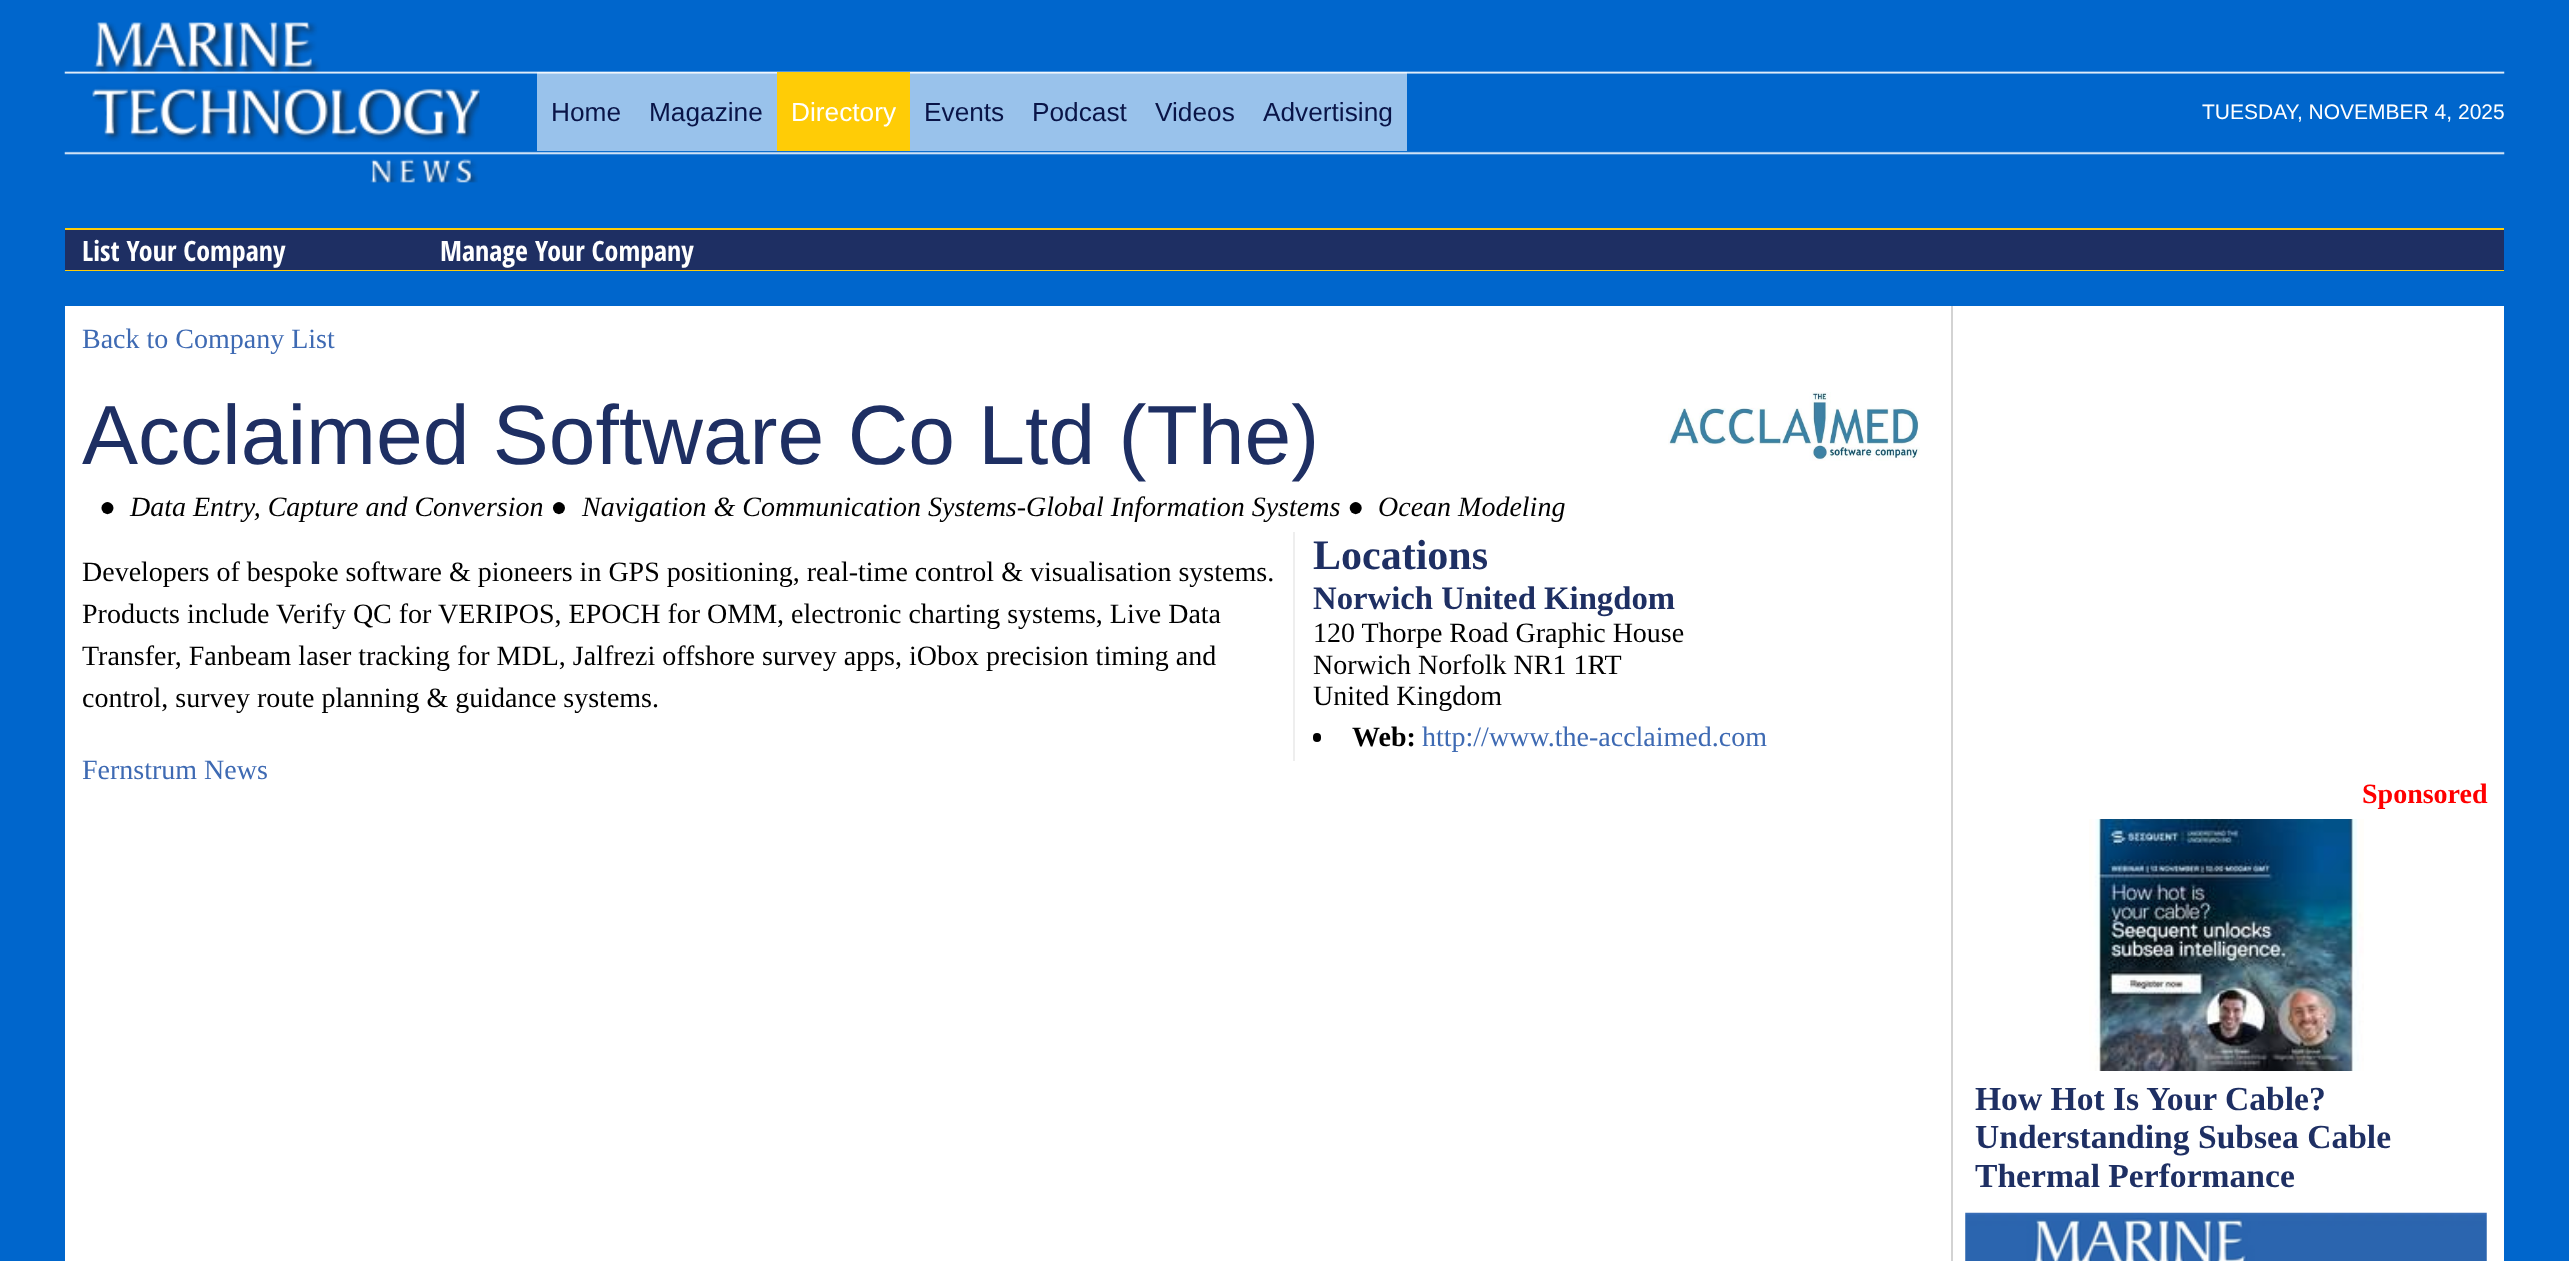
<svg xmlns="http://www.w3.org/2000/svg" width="2569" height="1261">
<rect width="100%" height="100%" fill="#06c"/>
<image x="64" y="22" width="2441" height="161" href="media/1.png"/>
<rect x="537" y="72" width="98" height="79" fill="#ffffff99"/>
<text x="551" y="121" style="font-family:Liberation Sans;font-size:26.25px;fill:#091447">Home</text>
<rect x="635" y="72" width="142" height="79" fill="#ffffff99"/>
<text x="649" y="121" style="font-family:Liberation Sans;font-size:26.25px;fill:#091447">Magazine</text>
<rect x="777" y="72" width="133" height="79" fill="#ffcc06"/>
<text x="791" y="121" style="font-family:Liberation Sans;font-size:26.25px;fill:#fff">Directory</text>
<rect x="910" y="72" width="109" height="79" fill="#ffffff99"/>
<text x="924" y="121" style="font-family:Liberation Sans;font-size:26.25px;fill:#091447">Events</text>
<rect x="1019" y="72" width="122" height="79" fill="#ffffff99"/>
<text x="1032" y="121" style="font-family:Liberation Sans;font-size:26.25px;fill:#091447">Podcast</text>
<rect x="1141" y="72" width="107" height="79" fill="#ffffff99"/>
<text x="1155" y="121" style="font-family:Liberation Sans;font-size:26.25px;fill:#091447">Videos</text>
<rect x="1248" y="72" width="159" height="79" fill="#ffffff99"/>
<text x="1263" y="121" style="font-family:Liberation Sans;font-size:26.25px;fill:#091447">Advertising</text>
<text x="2202" y="119" style="font-family:Liberation Sans;font-size:21px;fill:#fff">TUESDAY, NOVEMBER 4, 2025</text>
<rect x="65" y="230" width="2439" height="40" fill="#1e2f63"/>
<rect x="65" y="228" width="2439" height="2" fill="#ffcc06"/>
<text x="82" y="261" style="font-family:Open Sans Condensed;font-size:28px;font-weight:bold;fill:#fff">List Your Company</text>
<text x="440" y="261" style="font-family:Open Sans Condensed;font-size:28px;font-weight:bold;fill:#fff">Manage Your Company</text>
<rect x="65" y="270" width="2439" height="1" fill="#ffcc06"/>
<rect x="65" y="306" width="2439" height="955" fill="#fff"/>
<text x="82" y="348" style="font-family:Liberation Serif;font-size:28px;fill:#3e6ab3">Back to Company List</text>
<text x="82" y="464" style="font-family:Liberation Sans;font-size:84px;fill:#1e2f63">Acclaimed Software Co Ltd (The)</text>
<image x="1668" y="392" width="252" height="69" href="media/2.png"/>
<text x="99" y="516" style="font-family:Liberation Serif;font-size:28px;font-style:italic;fill:#000">●</text>
<text x="130" y="516" style="font-family:Liberation Serif;font-size:28px;font-style:italic;fill:#000">Data Entry, Capture and Conversion ●</text>
<text x="582" y="516" style="font-family:Liberation Serif;font-size:28px;font-style:italic;fill:#000">Navigation &amp; Communication Systems-Global Information Systems ●</text>
<text x="1378" y="516" style="font-family:Liberation Serif;font-size:28px;font-style:italic;fill:#000">Ocean Modeling</text>
<text x="82" y="581" style="font-family:Liberation Serif;font-size:28px;fill:#000">Developers of bespoke software &amp; pioneers in GPS positioning, real-time control &amp; visualisation systems.</text>
<text x="82" y="623" style="font-family:Liberation Serif;font-size:28px;fill:#000">Products include Verify QC for VERIPOS, EPOCH for OMM, electronic charting systems, Live Data</text>
<text x="82" y="665" style="font-family:Liberation Serif;font-size:28px;fill:#000">Transfer, Fanbeam laser tracking for MDL, Jalfrezi offshore survey apps, iObox precision timing and</text>
<text x="82" y="707" style="font-family:Liberation Serif;font-size:28px;fill:#000">control, survey route planning &amp; guidance systems.</text>
<rect x="1293" y="532" width="2" height="229" fill="#eee"/>
<text x="1313" y="569" style="font-family:Liberation Serif;font-size:42px;font-weight:bold;fill:#1e2f63">Locations</text>
<text x="1313" y="609" style="font-family:Liberation Serif;font-size:32.75px;font-weight:bold;fill:#1e2f63">Norwich United Kingdom</text>
<text x="1313" y="642" style="font-family:Liberation Serif;font-size:28px;fill:#000">120 Thorpe Road Graphic House</text>
<text x="1313" y="674" style="font-family:Liberation Serif;font-size:28px;fill:#000">Norwich Norfolk NR1 1RT</text>
<text x="1313" y="705" style="font-family:Liberation Serif;font-size:28px;fill:#000">United Kingdom</text>
<rect x="1313" y="733" width="8" height="9" rx="4" fill="#000"/>
<text x="1352" y="746" style="font-family:Liberation Serif;font-size:28px;font-weight:bold;fill:#000">Web:</text>
<text x="1422" y="746" style="font-family:Liberation Serif;font-size:28px;fill:#3e6ab3">http://www.the-acclaimed.com</text>
<text x="82" y="779" style="font-family:Liberation Serif;font-size:28px;fill:#3e6ab3">Fernstrum News</text>
<rect x="1951" y="306" width="2" height="955" fill="#d3d3d3"/>
<text x="2362" y="803" style="font-family:Liberation Serif;font-size:28px;font-weight:bold;fill:#f00">Sponsored</text>
<image x="2089" y="819" width="275" height="252" href="media/3.png"/>
<text x="1975" y="1110" style="font-family:Liberation Serif;font-size:33.6px;font-weight:bold;fill:#1e2f63">How Hot Is Your Cable?</text>
<text x="1975" y="1148" style="font-family:Liberation Serif;font-size:33.6px;font-weight:bold;fill:#1e2f63">Understanding Subsea Cable</text>
<text x="1975" y="1187" style="font-family:Liberation Serif;font-size:33.6px;font-weight:bold;fill:#1e2f63">Thermal Performance</text>
<image x="1965" y="1212" width="522" height="49" href="media/4.png"/>
</svg>
